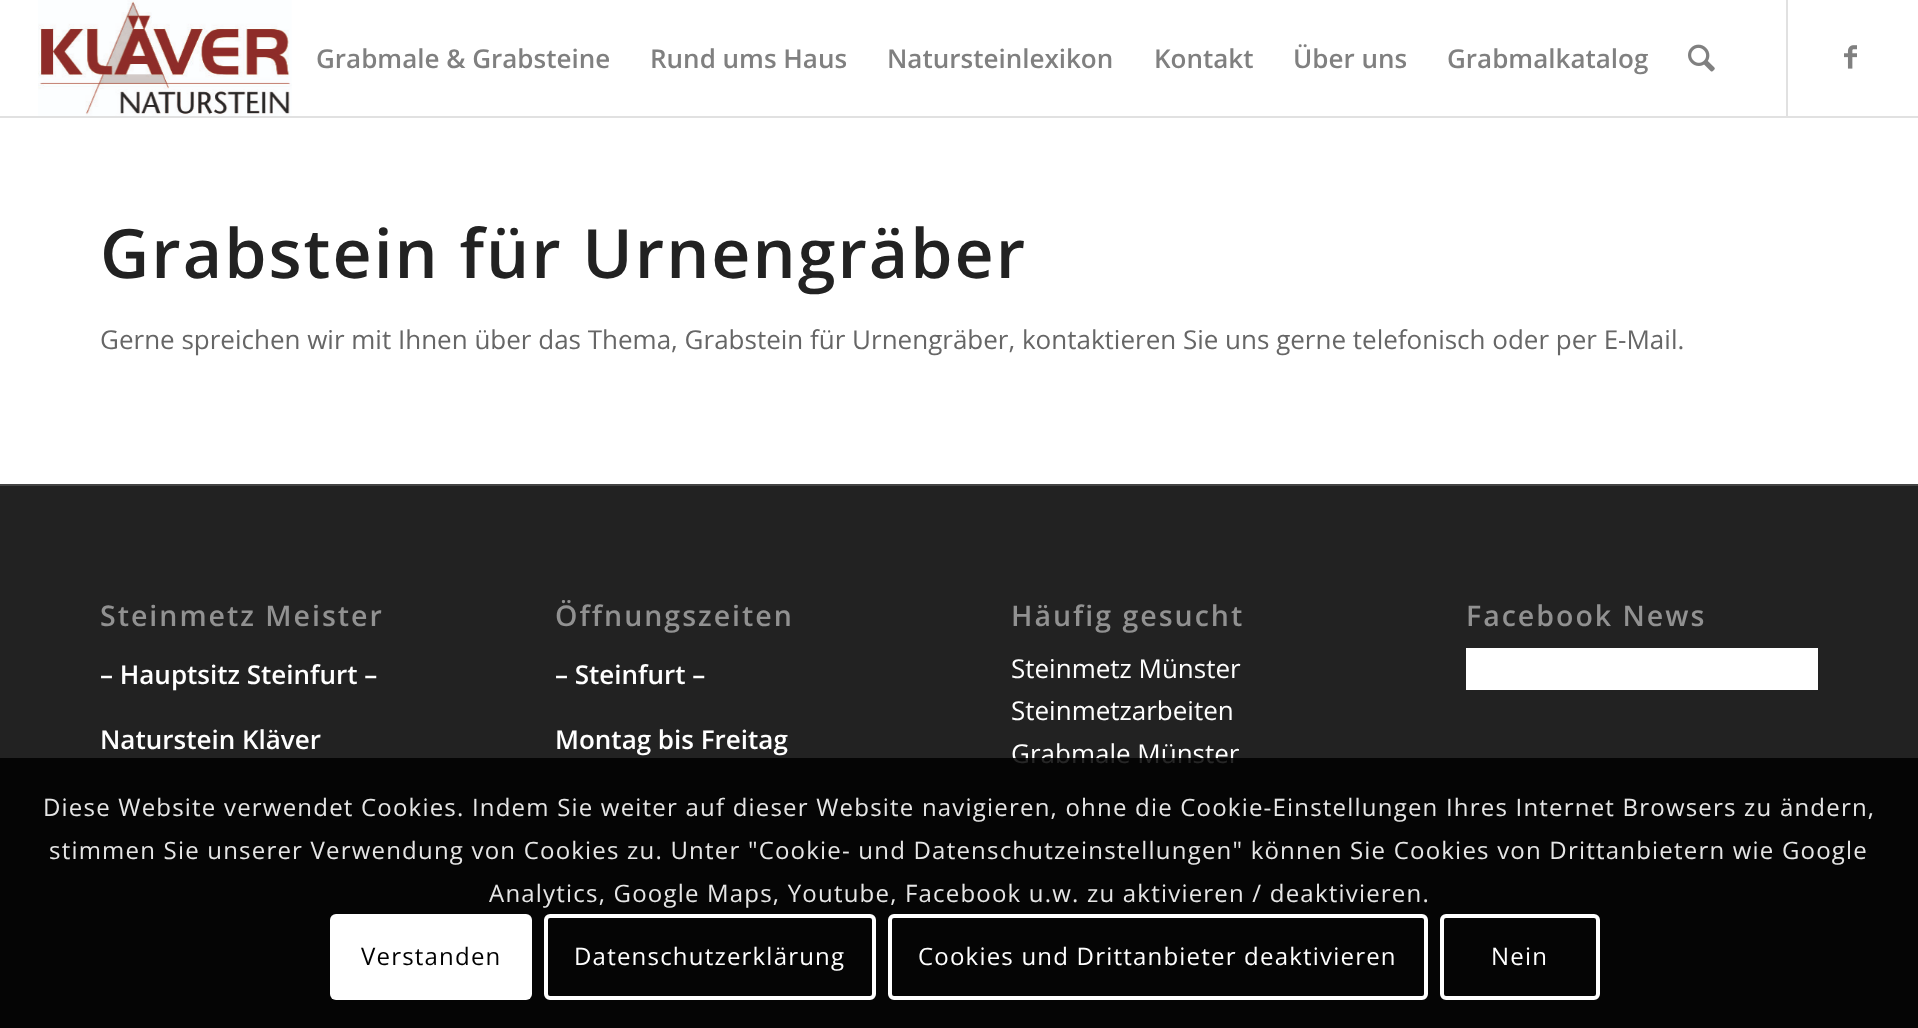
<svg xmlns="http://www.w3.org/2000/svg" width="1918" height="1028">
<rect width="100%" height="100%" fill="#fff"/>
<rect y="116" width="1918" height="2" fill="#e1e1e1"/>
<image x="38" y="0" width="254" height="116" href="media/1.png"/>
<rect x="1786" width="2" height="116" fill="#e1e1e1"/>
<text x="316" y="68" style="font-family:Open Sans;font-size:26px;font-weight:600;fill:#808080">Grabmale &amp; Grabsteine</text>
<text x="650" y="68" style="font-family:Open Sans;font-size:26px;font-weight:600;fill:#808080">Rund ums Haus</text>
<text x="887" y="68" style="font-family:Open Sans;font-size:26px;font-weight:600;fill:#808080">Natursteinlexikon</text>
<text x="1154" y="68" style="font-family:Open Sans;font-size:26px;font-weight:600;fill:#808080">Kontakt</text>
<text x="1293" y="68" style="font-family:Open Sans;font-size:26px;font-weight:600;fill:#808080">Über uns</text>
<text x="1447" y="68" style="font-family:Open Sans;font-size:26px;font-weight:600;fill:#808080">Grabmalkatalog</text>
<image x="1688" y="44" width="27" height="28" href="media/2.png"/>
<image x="1844" y="45" width="13" height="24" href="media/3.png"/>
<text x="100" y="278" style="font-family:Open Sans;font-size:68px;font-weight:600;letter-spacing:2px;fill:#222">Grabstein für Urnengräber</text>
<text x="100" y="349" style="font-family:Open Sans;font-size:26px;fill:#666">Gerne spreichen wir mit Ihnen über das Thema, Grabstein für Urnengräber, kontaktieren Sie uns gerne telefonisch oder per E-Mail.</text>
<rect y="486" width="1918" height="542" fill="#222"/>
<rect y="484" width="1918" height="2" fill="#444"/>
<text x="100" y="626" style="font-family:Open Sans;font-size:28.5px;font-weight:600;letter-spacing:2px;fill:#919191">Steinmetz Meister</text>
<text x="100" y="684" style="font-family:Open Sans;font-size:26px;font-weight:600;fill:#fff">– Hauptsitz Steinfurt –</text>
<text x="100" y="749" style="font-family:Open Sans;font-size:26px;font-weight:600;fill:#fff">Naturstein Kläver</text>
<text x="555" y="626" style="font-family:Open Sans;font-size:28.5px;font-weight:600;letter-spacing:2px;fill:#919191">Öffnungszeiten</text>
<text x="555" y="684" style="font-family:Open Sans;font-size:26px;font-weight:600;fill:#fff">– Steinfurt –</text>
<text x="555" y="749" style="font-family:Open Sans;font-size:26px;font-weight:600;fill:#fff">Montag bis Freitag</text>
<text x="1011" y="626" style="font-family:Open Sans;font-size:28.5px;font-weight:600;letter-spacing:2px;fill:#919191">Häufig gesucht</text>
<text x="1011" y="678" style="font-family:Open Sans;font-size:26px;fill:#fff">Steinmetz Münster</text>
<text x="1011" y="720" style="font-family:Open Sans;font-size:26px;fill:#fff">Steinmetzarbeiten</text>
<text x="1011" y="763" style="font-family:Open Sans;font-size:26px;fill:#fff">Grabmale Münster</text>
<text x="1466" y="626" style="font-family:Open Sans;font-size:28.5px;font-weight:600;letter-spacing:2px;fill:#919191">Facebook News</text>
<rect x="1466" y="648" width="352" height="42" fill="#fff"/>
<rect y="758" width="1918" height="270" fill="#000000d9"/>
<text x="43" y="816" style="font-family:Open Sans;font-size:24px;letter-spacing:1.2px;fill:#e6e6e6">Diese Website verwendet Cookies. Indem Sie weiter auf dieser Website navigieren, ohne die Cookie-Einstellungen Ihres Internet Browsers zu ändern,</text>
<text x="49" y="859" style="font-family:Open Sans;font-size:24px;letter-spacing:1.2px;fill:#e6e6e6">stimmen Sie unserer Verwendung von Cookies zu. Unter "Cookie- und Datenschutzeinstellungen" können Sie Cookies von Drittanbietern wie Google</text>
<text x="489" y="902" style="font-family:Open Sans;font-size:24px;letter-spacing:1.2px;fill:#e6e6e6">Analytics, Google Maps, Youtube, Facebook u.w. zu aktivieren / deaktivieren.</text>
<rect x="330" y="914" width="202" height="86" rx="6" fill="#fff"/>
<text x="361" y="965" style="font-family:Open Sans;font-size:24px;letter-spacing:1.2px;fill:#000">Verstanden</text>
<rect x="546" y="916" width="328" height="82" rx="4" fill="none" stroke="#fff" stroke-width="4"/>
<text x="574" y="965" style="font-family:Open Sans;font-size:24px;letter-spacing:1.2px;fill:#fff">Datenschutzerklärung</text>
<rect x="890" y="916" width="536" height="82" rx="4" fill="none" stroke="#fff" stroke-width="4"/>
<text x="918" y="965" style="font-family:Open Sans;font-size:24px;letter-spacing:1.2px;fill:#fff">Cookies und Drittanbieter deaktivieren</text>
<rect x="1442" y="916" width="156" height="82" rx="4" fill="none" stroke="#fff" stroke-width="4"/>
<text x="1491" y="965" style="font-family:Open Sans;font-size:24px;letter-spacing:1.2px;fill:#fff">Nein</text>
</svg>
